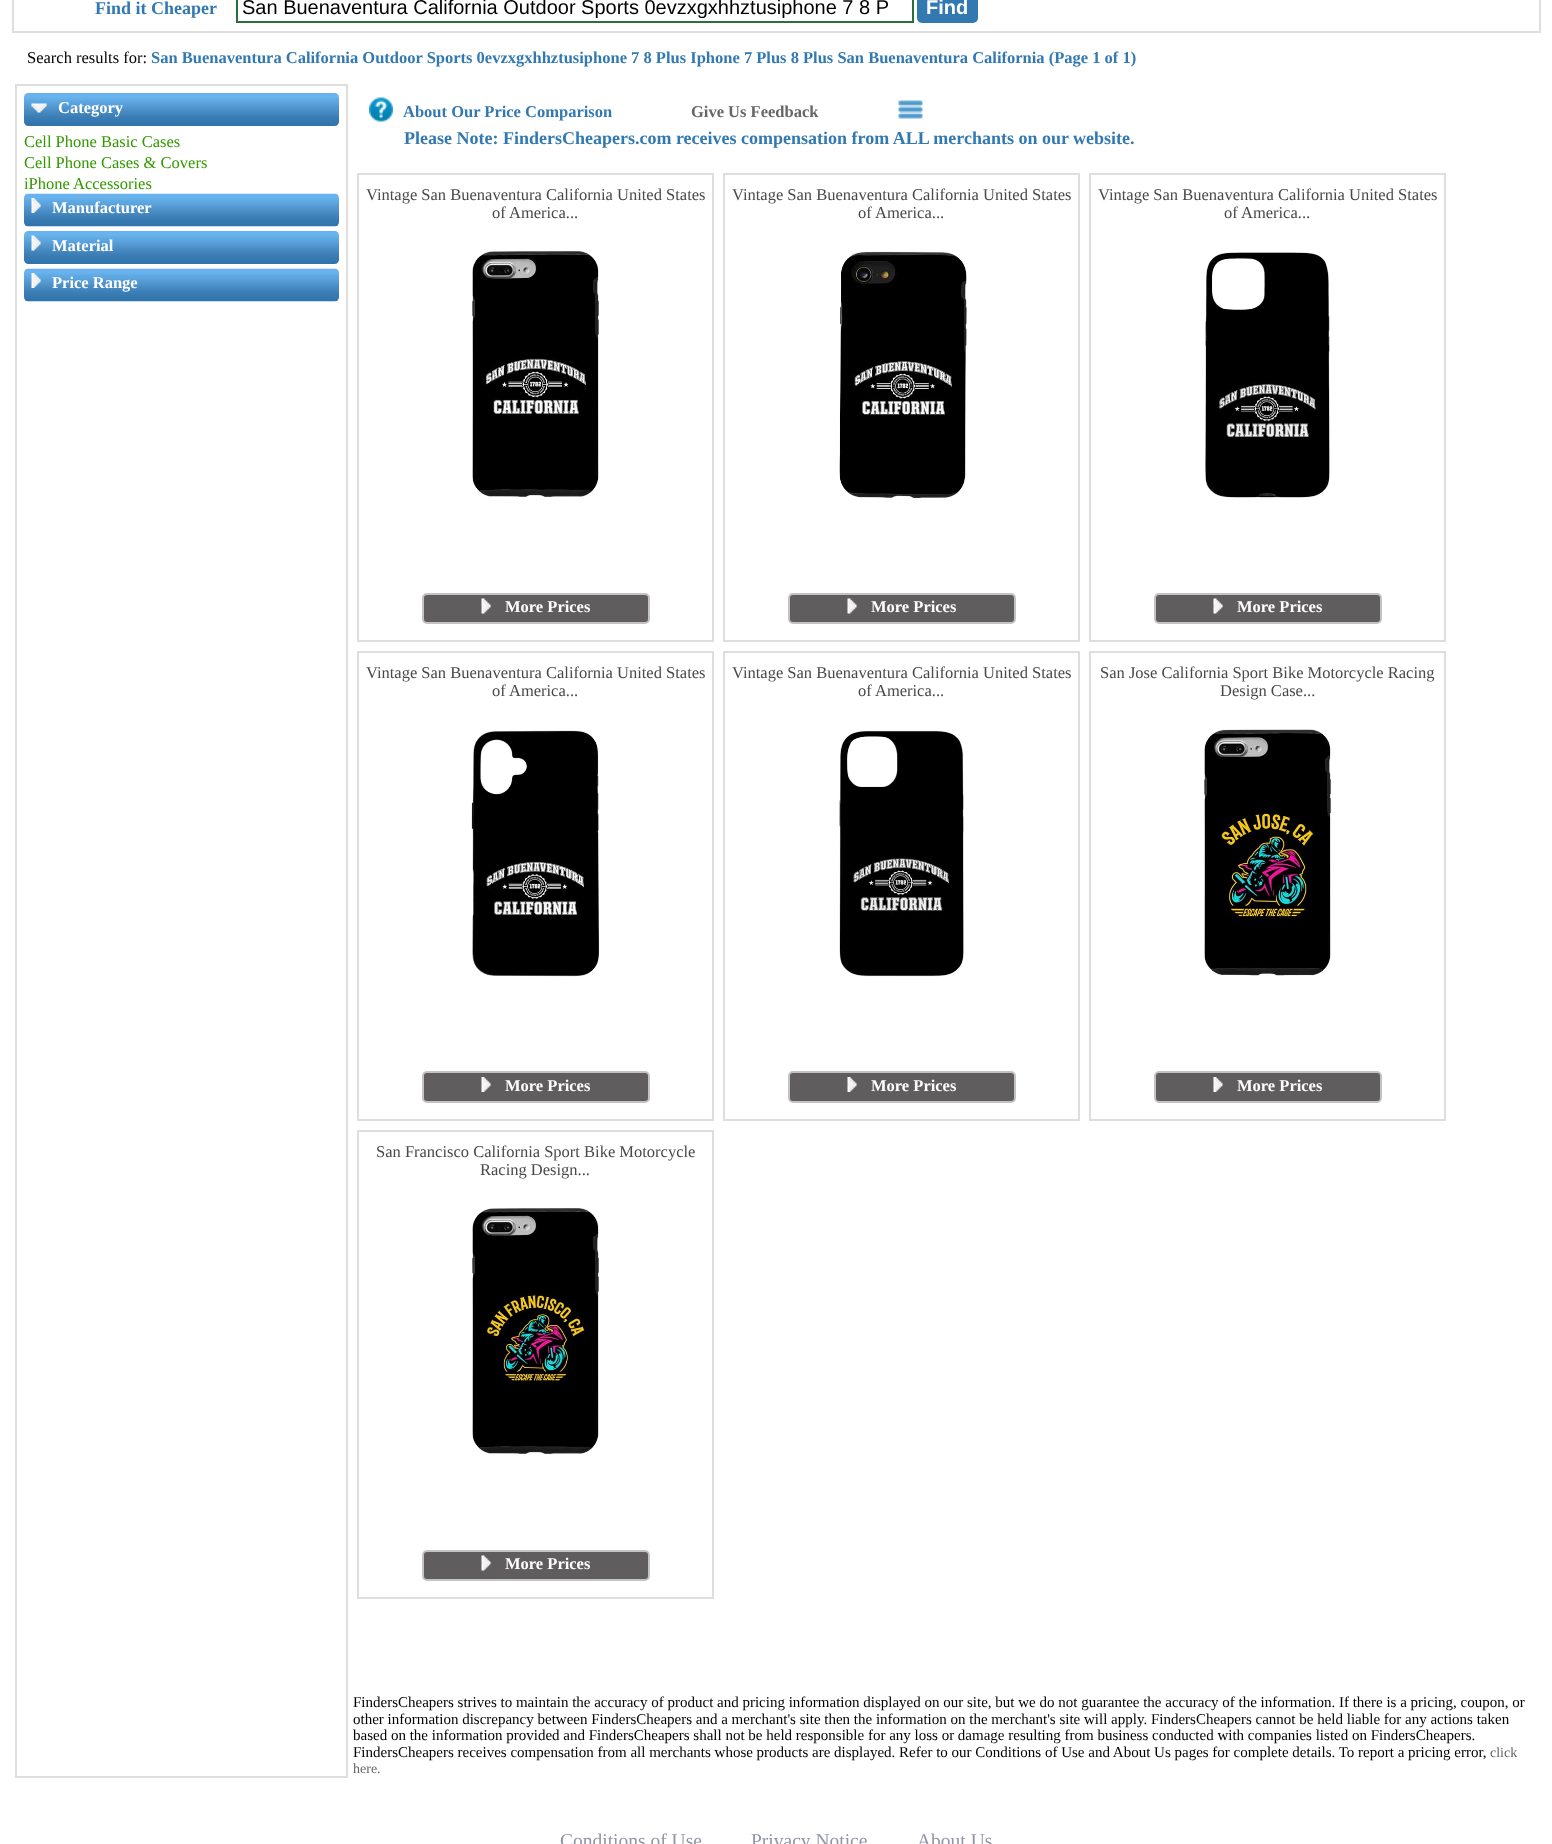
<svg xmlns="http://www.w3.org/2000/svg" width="1552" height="1844">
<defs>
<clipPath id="clip1"><rect x="242" width="648" height="18"/></clipPath>
</defs>
<rect width="100%" height="100%" fill="#fff"/>
<rect x="13" y="-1" width="1527" height="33" fill="none" stroke="#dedede" stroke-width="2"/>
<text x="95" y="14" style="font-family:Liberation Serif;font-size:18px;font-weight:bold;fill:#3379b1">Find it Cheaper</text>
<rect x="237" y="-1" width="676" height="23" fill="none" stroke="#2a6f3c" stroke-width="2"/>
<g clip-path="url(#clip1)">
<text x="242" y="14" style="font-family:Liberation Sans;font-size:20px;fill:#000">San Buenaventura California Outdoor Sports 0evzxgxhhztusiphone 7 8 P</text>
</g>
<rect x="917" y="-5" width="61" height="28" rx="5" fill="#3379b1"/>
<text x="926" y="14" style="font-family:Liberation Sans;font-size:20px;font-weight:bold;fill:#fff">Find</text>
<text x="27" y="63" style="font-family:Liberation Serif;font-size:16.5px;fill:#000">Search results for:</text>
<text x="151" y="63" style="font-family:Liberation Serif;font-size:16.5px;font-weight:bold;fill:#3379b1">San Buenaventura California Outdoor Sports 0evzxgxhhztusiphone 7 8 Plus Iphone 7 Plus 8 Plus San Buenaventura California (Page 1 of 1)</text>
<rect x="16" y="85" width="331" height="1692" fill="none" stroke="#dedede" stroke-width="2"/>
<image x="24" y="93" width="315" height="33" href="media/1.png"/>
<image x="31" y="103" width="16" height="10" href="media/2.png"/>
<text x="58" y="113" style="font-family:Liberation Serif;font-size:16.5px;font-weight:bold;fill:#fff">Category</text>
<text x="24" y="147" style="font-family:Liberation Serif;font-size:16.5px;fill:#390">Cell Phone Basic Cases</text>
<text x="24" y="168" style="font-family:Liberation Serif;font-size:16.5px;fill:#390">Cell Phone Cases &amp; Covers</text>
<text x="24" y="189" style="font-family:Liberation Serif;font-size:16.5px;fill:#390">iPhone Accessories</text>
<image x="24" y="193" width="315" height="34" href="media/3.png"/>
<image x="31" y="198" width="10" height="15" href="media/4.png"/>
<text x="52" y="213" style="font-family:Liberation Serif;font-size:16.5px;font-weight:bold;fill:#fff">Manufacturer</text>
<image x="24" y="231" width="315" height="33" href="media/1.png"/>
<image x="31" y="235" width="10" height="16" href="media/5.png"/>
<text x="52" y="251" style="font-family:Liberation Serif;font-size:16.5px;font-weight:bold;fill:#fff">Material</text>
<image x="24" y="268" width="315" height="34" href="media/3.png"/>
<image x="31" y="273" width="10" height="15" href="media/4.png"/>
<text x="52" y="288" style="font-family:Liberation Serif;font-size:16.5px;font-weight:bold;fill:#fff">Price Range</text>
<image x="369" y="97" width="24" height="25" href="media/6.png"/>
<text x="403" y="117" style="font-family:Liberation Serif;font-size:16.5px;font-weight:bold;fill:#3379b1">About Our Price Comparison</text>
<text x="691" y="117" style="font-family:Liberation Serif;font-size:16.5px;font-weight:bold;fill:#666">Give Us Feedback</text>
<image x="898" y="100" width="25" height="19" href="media/7.png"/>
<text x="404" y="144" style="font-family:Liberation Serif;font-size:18px;font-weight:bold;fill:#3379b1">Please Note: FindersCheapers.com receives compensation from ALL merchants on our website.</text>
<rect x="358" y="174" width="355" height="467" fill="none" stroke="#dedede" stroke-width="2"/>
<text x="366" y="200" style="font-family:Liberation Serif;font-size:16.5px;fill:#4a4949">Vintage San Buenaventura California United States</text>
<text x="492" y="218" style="font-family:Liberation Serif;font-size:16.5px;fill:#4a4949">of America...</text>
<image x="472" y="251" width="127" height="246" href="media/8.png"/>
<rect x="423" y="594" width="226" height="29" rx="4" fill="#5f5d5d" stroke="#c3c3c3" stroke-width="2"/>
<image x="481" y="598" width="10" height="16" href="media/9.png"/>
<text x="505" y="612" style="font-family:Liberation Serif;font-size:16.5px;font-weight:bold;fill:#fff">More Prices</text>
<rect x="724" y="174" width="355" height="467" fill="none" stroke="#dedede" stroke-width="2"/>
<text x="732" y="200" style="font-family:Liberation Serif;font-size:16.5px;fill:#4a4949">Vintage San Buenaventura California United States</text>
<text x="858" y="218" style="font-family:Liberation Serif;font-size:16.5px;fill:#4a4949">of America...</text>
<image x="838" y="251" width="129" height="248" href="media/10.png"/>
<rect x="789" y="594" width="226" height="29" rx="4" fill="#5f5d5d" stroke="#c3c3c3" stroke-width="2"/>
<image x="847" y="598" width="10" height="16" href="media/9.png"/>
<text x="871" y="612" style="font-family:Liberation Serif;font-size:16.5px;font-weight:bold;fill:#fff">More Prices</text>
<rect x="1090" y="174" width="355" height="467" fill="none" stroke="#dedede" stroke-width="2"/>
<text x="1098" y="200" style="font-family:Liberation Serif;font-size:16.5px;fill:#4a4949">Vintage San Buenaventura California United States</text>
<text x="1224" y="218" style="font-family:Liberation Serif;font-size:16.5px;fill:#4a4949">of America...</text>
<image x="1205" y="252" width="125" height="246" href="media/11.png"/>
<rect x="1155" y="594" width="226" height="29" rx="4" fill="#5f5d5d" stroke="#c3c3c3" stroke-width="2"/>
<image x="1213" y="598" width="10" height="16" href="media/9.png"/>
<text x="1237" y="612" style="font-family:Liberation Serif;font-size:16.5px;font-weight:bold;fill:#fff">More Prices</text>
<rect x="358" y="652" width="355" height="468" fill="none" stroke="#dedede" stroke-width="2"/>
<text x="366" y="678" style="font-family:Liberation Serif;font-size:16.5px;fill:#4a4949">Vintage San Buenaventura California United States</text>
<text x="492" y="696" style="font-family:Liberation Serif;font-size:16.5px;fill:#4a4949">of America...</text>
<image x="471" y="730" width="129" height="247" href="media/12.png"/>
<rect x="423" y="1072" width="226" height="30" rx="4" fill="#5f5d5d" stroke="#c3c3c3" stroke-width="2"/>
<image x="481" y="1077" width="10" height="15" href="media/13.png"/>
<text x="505" y="1091" style="font-family:Liberation Serif;font-size:16.5px;font-weight:bold;fill:#fff">More Prices</text>
<rect x="724" y="652" width="355" height="468" fill="none" stroke="#dedede" stroke-width="2"/>
<text x="732" y="678" style="font-family:Liberation Serif;font-size:16.5px;fill:#4a4949">Vintage San Buenaventura California United States</text>
<text x="858" y="696" style="font-family:Liberation Serif;font-size:16.5px;fill:#4a4949">of America...</text>
<image x="838" y="730" width="126" height="247" href="media/14.png"/>
<rect x="789" y="1072" width="226" height="30" rx="4" fill="#5f5d5d" stroke="#c3c3c3" stroke-width="2"/>
<image x="847" y="1077" width="10" height="15" href="media/13.png"/>
<text x="871" y="1091" style="font-family:Liberation Serif;font-size:16.5px;font-weight:bold;fill:#fff">More Prices</text>
<rect x="1090" y="652" width="355" height="468" fill="none" stroke="#dedede" stroke-width="2"/>
<text x="1100" y="678" style="font-family:Liberation Serif;font-size:16.5px;fill:#4a4949">San Jose California Sport Bike Motorcycle Racing</text>
<text x="1220" y="696" style="font-family:Liberation Serif;font-size:16.5px;fill:#4a4949">Design Case...</text>
<image x="1204" y="729" width="127" height="247" href="media/15.png"/>
<rect x="1155" y="1072" width="226" height="30" rx="4" fill="#5f5d5d" stroke="#c3c3c3" stroke-width="2"/>
<image x="1213" y="1077" width="10" height="15" href="media/13.png"/>
<text x="1237" y="1091" style="font-family:Liberation Serif;font-size:16.5px;font-weight:bold;fill:#fff">More Prices</text>
<rect x="358" y="1131" width="355" height="467" fill="none" stroke="#dedede" stroke-width="2"/>
<text x="376" y="1157" style="font-family:Liberation Serif;font-size:16.5px;fill:#4a4949">San Francisco California Sport Bike Motorcycle</text>
<text x="480" y="1175" style="font-family:Liberation Serif;font-size:16.5px;fill:#4a4949">Racing Design...</text>
<image x="472" y="1208" width="127" height="246" href="media/16.png"/>
<rect x="423" y="1551" width="226" height="29" rx="4" fill="#5f5d5d" stroke="#c3c3c3" stroke-width="2"/>
<image x="481" y="1555" width="10" height="16" href="media/9.png"/>
<text x="505" y="1569" style="font-family:Liberation Serif;font-size:16.5px;font-weight:bold;fill:#fff">More Prices</text>
<text x="353" y="1707" style="font-family:Liberation Serif;font-size:15px;fill:#000">FindersCheapers strives to maintain the accuracy of product and pricing information displayed on our site, but we do not guarantee the accuracy of the information. If there is a pricing, coupon, or</text>
<text x="353" y="1724" style="font-family:Liberation Serif;font-size:15px;fill:#000">other information discrepancy between FindersCheapers and a merchant's site then the information on the merchant's site will apply. FindersCheapers cannot be held liable for any actions taken</text>
<text x="353" y="1740" style="font-family:Liberation Serif;font-size:15px;fill:#000">based on the information provided and FindersCheapers shall not be held responsible for any loss or damage resulting from business conducted with companies listed on FindersCheapers.</text>
<text x="353" y="1757" style="font-family:Liberation Serif;font-size:15px;fill:#000">FindersCheapers receives compensation from all merchants whose products are displayed. Refer to our Conditions of Use and About Us pages for complete details. To report a pricing error,</text>
<text x="1490" y="1757" style="font-family:Liberation Serif;font-size:14px;fill:#666">click</text>
<text x="353" y="1773" style="font-family:Liberation Serif;font-size:14px;fill:#666">here.</text>
<text x="560" y="1847" style="font-family:Liberation Serif;font-size:19.5px;fill:#9195a5">Conditions of Use</text>
<text x="751" y="1847" style="font-family:Liberation Serif;font-size:19.5px;fill:#9195a5">Privacy Notice</text>
<text x="917" y="1847" style="font-family:Liberation Serif;font-size:19.5px;fill:#9195a5">About Us</text>
</svg>
